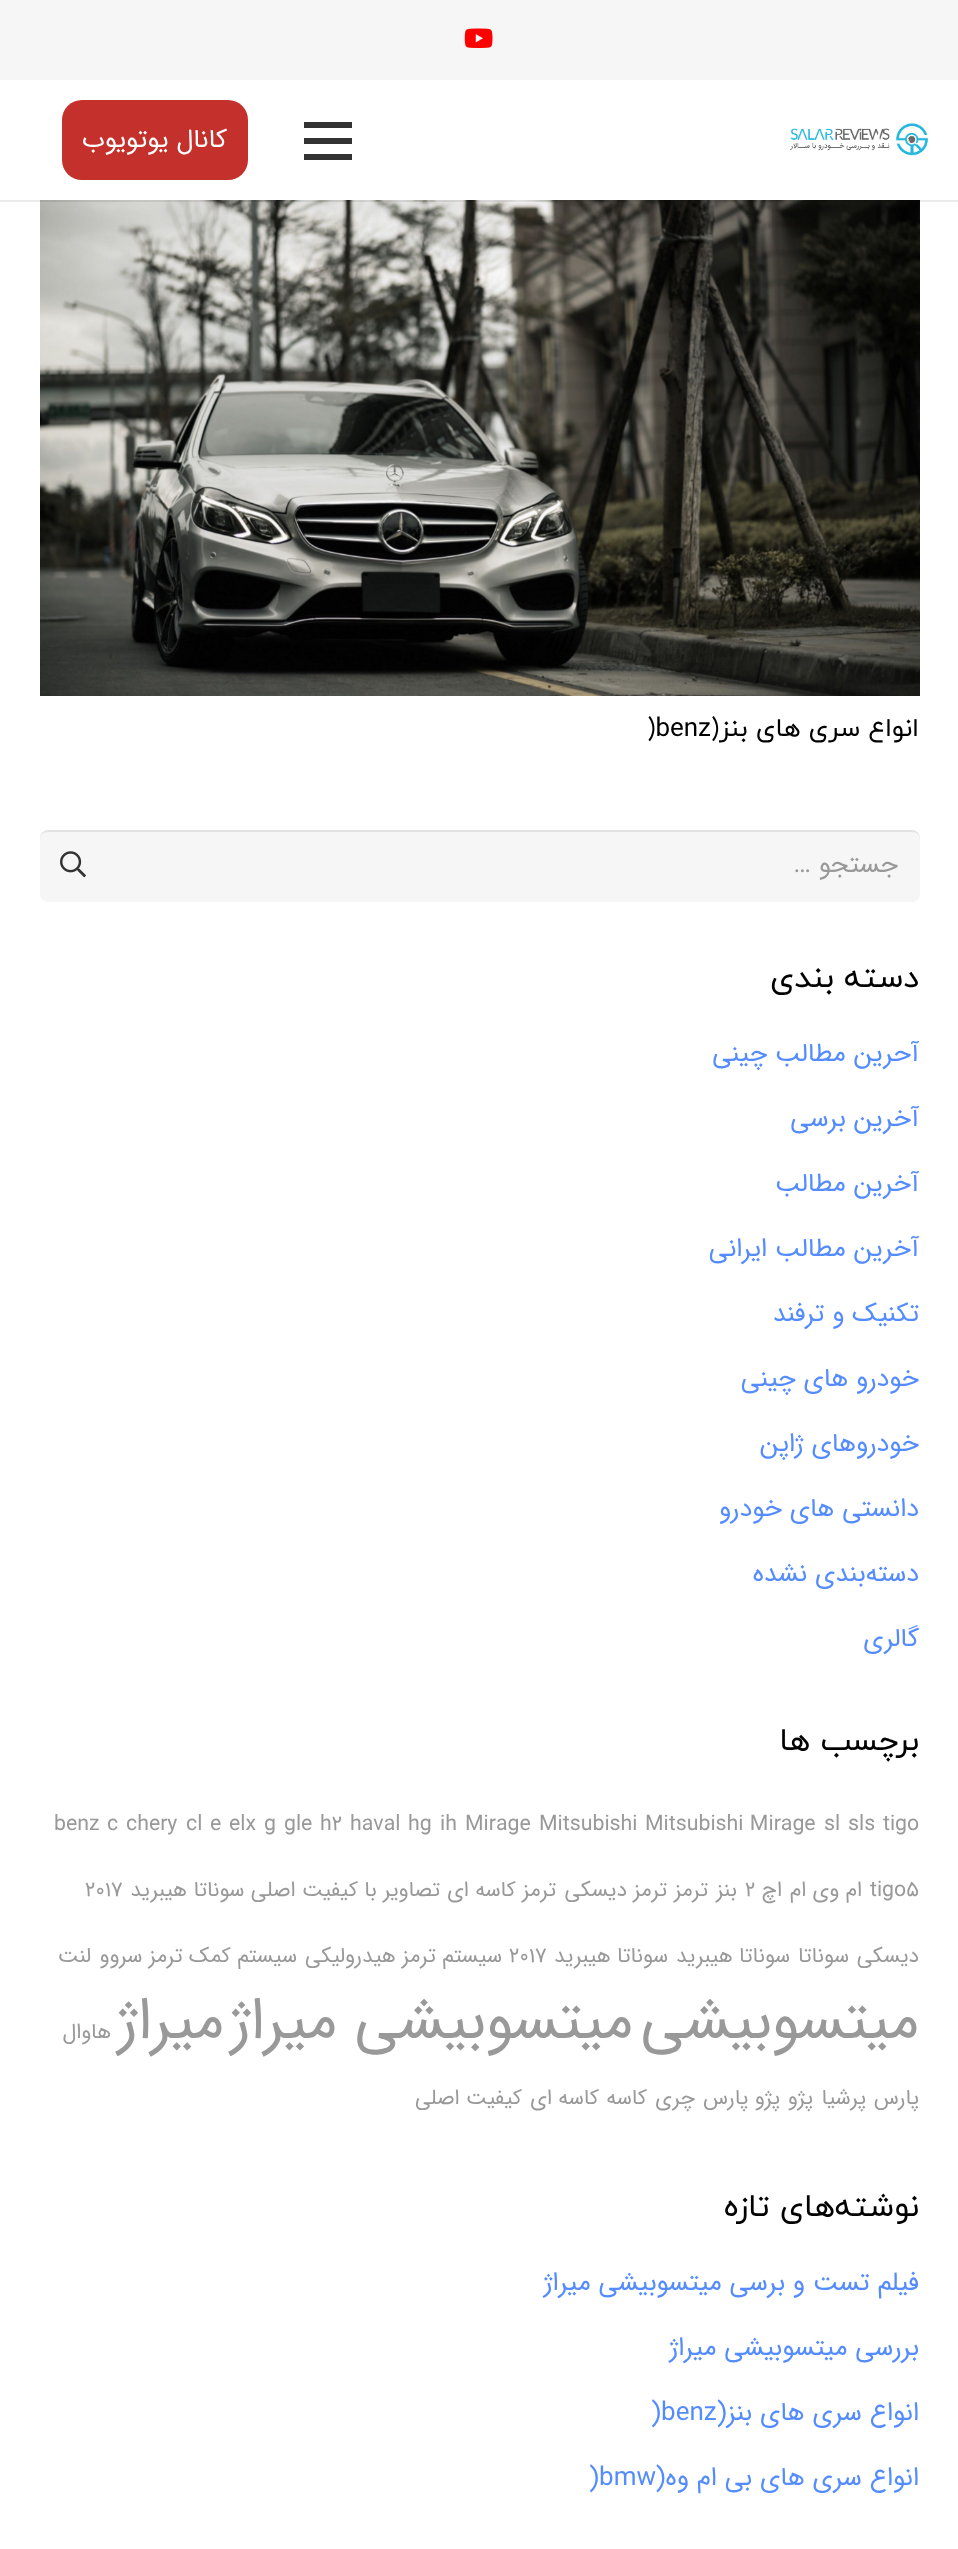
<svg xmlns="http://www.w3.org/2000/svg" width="958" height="2549">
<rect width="100%" height="100%" fill="#fff"/>
<rect width="958" height="80" fill="#f6f6f6"/>
<image x="464" y="28" width="29" height="20" href="media/1.png"/>
<image x="40" y="200" width="880" height="496" href="media/3.png"/>
<rect y="200" width="958" height="2" fill="#00000014"/>
<image x="790" y="123" width="138" height="33" href="media/2.png"/>
<rect x="304" y="138" width="48" height="6" fill="#333"/>
<rect x="304" y="122" width="48" height="6" fill="#333"/>
<rect x="304" y="154" width="48" height="6" fill="#333"/>
<rect x="62" y="100" width="186" height="80" rx="20" fill="#c4302b"/>
<text x="227" y="147" style="font-family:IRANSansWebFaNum;font-size:26px;direction:rtl;fill:#fff">کانال یوتویوب</text>
<text x="919" y="736" style="font-family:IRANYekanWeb;font-size:26px;direction:rtl;fill:#000">انواع سری های بنز(</text>
<text x="647" y="736" style="font-family:IRANYekanWeb;font-size:26px;fill:#000">)benz</text>
<rect x="40" y="830" width="880" height="72" rx="8" fill="#f6f6f6"/>
<path d="M48 832h864c5 0 8 3 8 8v-2c0-4-4-8-8-8h-864c-4 0-8 4-8 8v2c0-5 3-8 8-8z" fill="#e2e2e2"/>
<text x="898" y="872" style="font-family:IRANSansWebFaNum;font-size:26px;direction:rtl;fill:#999">جستجو …</text>
<image x="60" y="851" width="26" height="27" href="media/4.png"/>
<text x="919" y="987" style="font-family:IRANYekanWeb;font-size:32px;direction:rtl;fill:#000">دسته بندی</text>
<text x="919" y="1061" style="font-family:IRANSansWebFaNum;font-size:26px;direction:rtl;fill:#548cff">آحرین مطالب چینی</text>
<text x="919" y="1126" style="font-family:IRANSansWebFaNum;font-size:26px;direction:rtl;fill:#548cff">آخرین برسی</text>
<text x="919" y="1191" style="font-family:IRANSansWebFaNum;font-size:26px;direction:rtl;fill:#548cff">آخرین مطالب</text>
<text x="919" y="1256" style="font-family:IRANSansWebFaNum;font-size:26px;direction:rtl;fill:#548cff">آخرین مطالب ایرانی</text>
<text x="919" y="1321" style="font-family:IRANSansWebFaNum;font-size:26px;direction:rtl;fill:#548cff">تکنیک و ترفند</text>
<text x="919" y="1386" style="font-family:IRANSansWebFaNum;font-size:26px;direction:rtl;fill:#548cff">خودرو های چینی</text>
<text x="919" y="1451" style="font-family:IRANSansWebFaNum;font-size:26px;direction:rtl;fill:#548cff">خودروهای ژاپن</text>
<text x="919" y="1516" style="font-family:IRANSansWebFaNum;font-size:26px;direction:rtl;fill:#548cff">دانستی های خودرو</text>
<text x="919" y="1581" style="font-family:IRANSansWebFaNum;font-size:26px;direction:rtl;fill:#548cff">دسته‌بندی نشده</text>
<text x="919" y="1646" style="font-family:IRANSansWebFaNum;font-size:26px;direction:rtl;fill:#548cff">گالری</text>
<text x="919" y="1750" style="font-family:IRANYekanWeb;font-size:32px;direction:rtl;fill:#000">برچسب ها</text>
<text x="883" y="1830" style="font-family:IRANSansWebFaNum;font-size:21.3px;fill:#999">tigo</text>
<text x="848" y="1830" style="font-family:IRANSansWebFaNum;font-size:21.3px;fill:#999">sls</text>
<text x="824" y="1830" style="font-family:IRANSansWebFaNum;font-size:21.3px;fill:#999">sl</text>
<text x="645" y="1830" style="font-family:IRANSansWebFaNum;font-size:21.3px;fill:#999">Mitsubishi Mirage</text>
<text x="539" y="1830" style="font-family:IRANSansWebFaNum;font-size:21.3px;fill:#999">Mitsubishi</text>
<text x="465" y="1830" style="font-family:IRANSansWebFaNum;font-size:21.3px;fill:#999">Mirage</text>
<text x="440" y="1830" style="font-family:IRANSansWebFaNum;font-size:21.3px;fill:#999">ih</text>
<text x="408" y="1830" style="font-family:IRANSansWebFaNum;font-size:21.3px;fill:#999">hg</text>
<text x="350" y="1830" style="font-family:IRANSansWebFaNum;font-size:21.3px;fill:#999">haval</text>
<text x="320" y="1830" style="font-family:IRANSansWebFaNum;font-size:21.3px;fill:#999">h2</text>
<text x="284" y="1830" style="font-family:IRANSansWebFaNum;font-size:21.3px;fill:#999">gle</text>
<text x="264" y="1830" style="font-family:IRANSansWebFaNum;font-size:21.3px;fill:#999">g</text>
<text x="229" y="1830" style="font-family:IRANSansWebFaNum;font-size:21.3px;fill:#999">elx</text>
<text x="210" y="1830" style="font-family:IRANSansWebFaNum;font-size:21.3px;fill:#999">e</text>
<text x="186" y="1830" style="font-family:IRANSansWebFaNum;font-size:21.3px;fill:#999">cl</text>
<text x="126" y="1830" style="font-family:IRANSansWebFaNum;font-size:21.3px;fill:#999">chery</text>
<text x="107" y="1830" style="font-family:IRANSansWebFaNum;font-size:21.3px;fill:#999">c</text>
<text x="54" y="1830" style="font-family:IRANSansWebFaNum;font-size:21.3px;fill:#999">benz</text>
<text x="870" y="1896" style="font-family:IRANSansWebFaNum;font-size:21.3px;fill:#999">tigo5</text>
<text x="862" y="1896" style="font-family:IRANSansWebFaNum;font-size:21.3px;direction:rtl;fill:#999">ام وی ام</text>
<text x="782" y="1896" style="font-family:IRANSansWebFaNum;font-size:21.3px;direction:rtl;fill:#999">اچ</text>
<text x="745" y="1896" style="font-family:IRANSansWebFaNum;font-size:21.3px;fill:#999">2</text>
<text x="737" y="1896" style="font-family:IRANSansWebFaNum;font-size:21.3px;direction:rtl;fill:#999">بنز</text>
<text x="708" y="1896" style="font-family:IRANSansWebFaNum;font-size:21.3px;direction:rtl;fill:#999">ترمز</text>
<text x="667" y="1896" style="font-family:IRANSansWebFaNum;font-size:21.3px;direction:rtl;fill:#999">ترمز دیسکی</text>
<text x="556" y="1896" style="font-family:IRANSansWebFaNum;font-size:21.3px;direction:rtl;fill:#999">ترمز کاسه ای</text>
<text x="440" y="1896" style="font-family:IRANSansWebFaNum;font-size:21.3px;direction:rtl;fill:#999">تصاویر با کیفیت اصلی سوناتا هیبرید</text>
<text x="85" y="1896" style="font-family:IRANSansWebFaNum;font-size:21.3px;fill:#999">۲۰۱۷</text>
<text x="919" y="1962" style="font-family:IRANSansWebFaNum;font-size:21.3px;direction:rtl;fill:#999">دیسکی</text>
<text x="849" y="1962" style="font-family:IRANSansWebFaNum;font-size:21.3px;direction:rtl;fill:#999">سوناتا</text>
<text x="790" y="1962" style="font-family:IRANSansWebFaNum;font-size:21.3px;direction:rtl;fill:#999">سوناتا هیبرید</text>
<text x="668" y="1962" style="font-family:IRANSansWebFaNum;font-size:21.3px;direction:rtl;fill:#999">سوناتا هیبرید</text>
<text x="509" y="1962" style="font-family:IRANSansWebFaNum;font-size:21.3px;fill:#999">۲۰۱۷</text>
<text x="502" y="1962" style="font-family:IRANSansWebFaNum;font-size:21.3px;direction:rtl;fill:#999">سیستم ترمز هیدرولیکی</text>
<text x="297" y="1962" style="font-family:IRANSansWebFaNum;font-size:21.3px;direction:rtl;fill:#999">سیستم کمک ترمز سروو</text>
<text x="91" y="1962" style="font-family:IRANSansWebFaNum;font-size:21.3px;direction:rtl;fill:#999">لنت</text>
<text x="919" y="2038" style="font-family:IRANSansWebFaNum;font-size:58.75px;direction:rtl;fill:#999">میتسوبیشی</text>
<text x="633" y="2038" style="font-family:IRANSansWebFaNum;font-size:58.75px;direction:rtl;fill:#999">میتسوبیشی میراژ</text>
<text x="224" y="2038" style="font-family:IRANSansWebFaNum;font-size:58.75px;direction:rtl;fill:#999">میراژ</text>
<text x="111" y="2038" style="font-family:IRANSansWebFaNum;font-size:21.3px;direction:rtl;fill:#999">هاوال</text>
<text x="919" y="2104" style="font-family:IRANSansWebFaNum;font-size:21.3px;direction:rtl;fill:#999">پارس</text>
<text x="866" y="2104" style="font-family:IRANSansWebFaNum;font-size:21.3px;direction:rtl;fill:#999">پرشیا</text>
<text x="813" y="2104" style="font-family:IRANSansWebFaNum;font-size:21.3px;direction:rtl;fill:#999">پژو</text>
<text x="780" y="2104" style="font-family:IRANSansWebFaNum;font-size:21.3px;direction:rtl;fill:#999">پژو پارس</text>
<text x="695" y="2104" style="font-family:IRANSansWebFaNum;font-size:21.3px;direction:rtl;fill:#999">چری</text>
<text x="647" y="2104" style="font-family:IRANSansWebFaNum;font-size:21.3px;direction:rtl;fill:#999">کاسه</text>
<text x="599" y="2104" style="font-family:IRANSansWebFaNum;font-size:21.3px;direction:rtl;fill:#999">کاسه ای</text>
<text x="522" y="2104" style="font-family:IRANSansWebFaNum;font-size:21.3px;direction:rtl;fill:#999">کیفیت اصلی</text>
<text x="919" y="2216" style="font-family:IRANYekanWeb;font-size:32px;direction:rtl;fill:#000">نوشته‌های تازه</text>
<text x="919" y="2290" style="font-family:IRANSansWebFaNum;font-size:26px;direction:rtl;fill:#548cff">فیلم تست و برسی میتسوبیشی میراژ</text>
<text x="919" y="2355" style="font-family:IRANSansWebFaNum;font-size:26px;direction:rtl;fill:#548cff">بررسی میتسوبیشی میراژ</text>
<text x="919" y="2420" style="font-family:IRANSansWebFaNum;font-size:26px;direction:rtl;fill:#548cff">انواع سری های بنز(</text>
<text x="651" y="2420" style="font-family:IRANSansWebFaNum;font-size:26px;fill:#548cff">)benz</text>
<text x="919" y="2485" style="font-family:IRANSansWebFaNum;font-size:26px;direction:rtl;fill:#548cff">انواع سری های بی ام وه(</text>
<text x="589" y="2485" style="font-family:IRANSansWebFaNum;font-size:26px;fill:#548cff">)bmw</text>
</svg>
